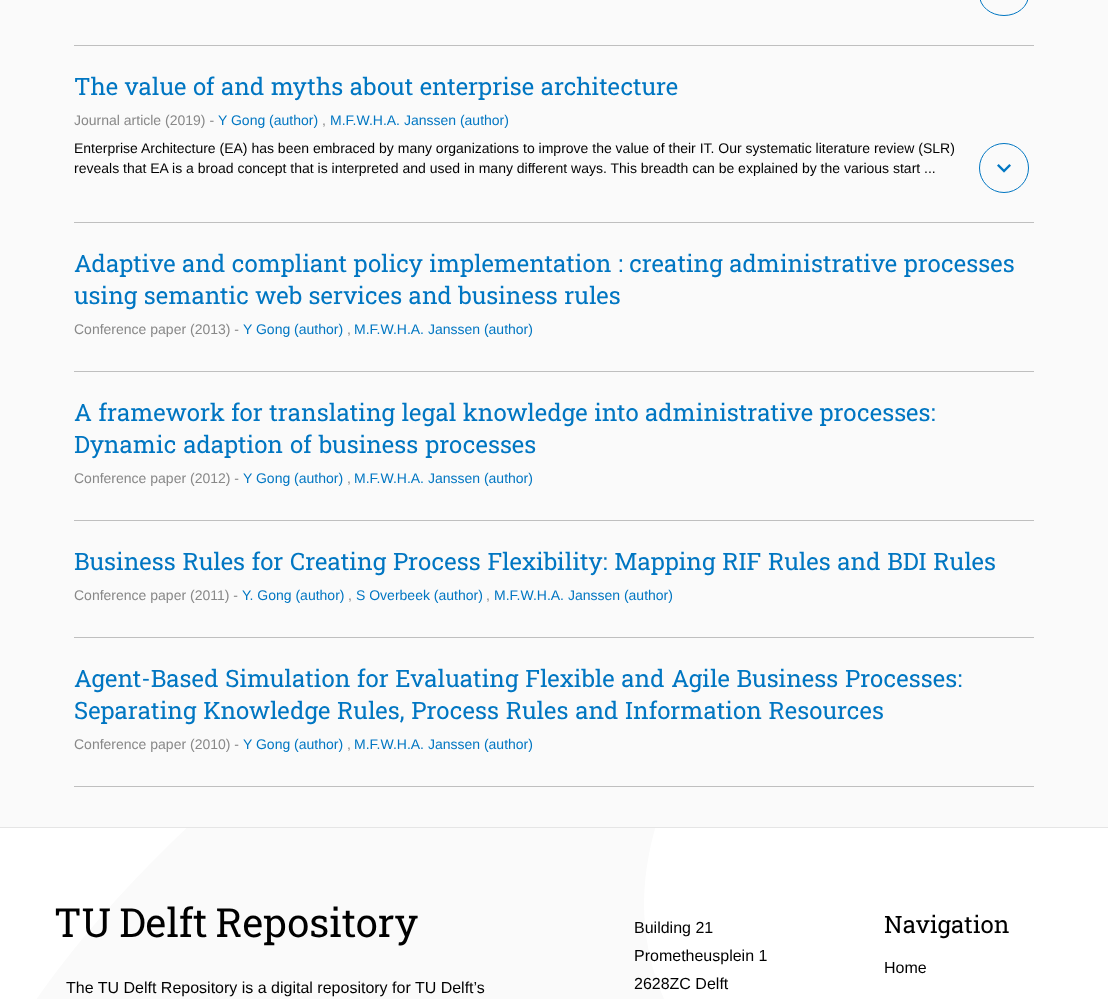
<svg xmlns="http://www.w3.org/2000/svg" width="1108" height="999">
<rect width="100%" height="100%" fill="#fafafa"/>
<rect x="74" y="45" width="960" height="1" fill="#bfbfbf"/>
<rect x="979.5" y="-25.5" width="49" height="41" rx="24.5" fill="none" stroke="#0076c2"/>
<rect x="74" y="222" width="960" height="1" fill="#bfbfbf"/>
<text x="74" y="95" word-spacing="0.5" style="font-family:Roboto Slab;font-size:24px;fill:#0076c2">The value of and myths about enterprise architecture</text>
<text x="74" y="125" style="font-family:Liberation Sans;font-size:14px;fill:#888">Journal article (2019) -</text>
<text x="218" y="125" style="font-family:Liberation Sans;font-size:14px;fill:#0076c2">Y Gong (author)</text>
<text x="322" y="125" style="font-family:Liberation Sans;font-size:14px;fill:#888">,</text>
<text x="330" y="125" style="font-family:Liberation Sans;font-size:14px;fill:#0076c2">M.F.W.H.A. Janssen (author)</text>
<text x="74" y="153" style="font-family:Liberation Sans;font-size:14px;fill:#000">Enterprise Architecture (EA) has been embraced by many organizations to improve the value of their IT. Our systematic literature review (SLR)</text>
<text x="74" y="173" style="font-family:Liberation Sans;font-size:14px;fill:#000">reveals that EA is a broad concept that is interpreted and used in many different ways. This breadth can be explained by the various start ...</text>
<circle cx="1004" cy="168" r="24.5" fill="none" stroke="#0076c2"/>
<image x="997" y="164" width="14" height="9" href="media/1.png"/>
<rect x="74" y="371" width="960" height="1" fill="#bfbfbf"/>
<text x="74" y="272" word-spacing="0.5" style="font-family:Roboto Slab;font-size:24px;fill:#0076c2">Adaptive and compliant policy implementation : creating administrative processes</text>
<text x="74" y="304" word-spacing="0.5" style="font-family:Roboto Slab;font-size:24px;fill:#0076c2">using semantic web services and business rules</text>
<text x="74" y="334" style="font-family:Liberation Sans;font-size:14px;fill:#888">Conference paper (2013) -</text>
<text x="243" y="334" style="font-family:Liberation Sans;font-size:14px;fill:#0076c2">Y Gong (author)</text>
<text x="347" y="334" style="font-family:Liberation Sans;font-size:14px;fill:#888">,</text>
<text x="354" y="334" style="font-family:Liberation Sans;font-size:14px;fill:#0076c2">M.F.W.H.A. Janssen (author)</text>
<rect x="74" y="520" width="960" height="1" fill="#bfbfbf"/>
<text x="74" y="421" word-spacing="0.5" style="font-family:Roboto Slab;font-size:24px;fill:#0076c2">A framework for translating legal knowledge into administrative processes:</text>
<text x="74" y="453" word-spacing="1" style="font-family:Roboto Slab;font-size:24px;fill:#0076c2">Dynamic adaption of business processes</text>
<text x="74" y="483" style="font-family:Liberation Sans;font-size:14px;fill:#888">Conference paper (2012) -</text>
<text x="243" y="483" style="font-family:Liberation Sans;font-size:14px;fill:#0076c2">Y Gong (author)</text>
<text x="347" y="483" style="font-family:Liberation Sans;font-size:14px;fill:#888">,</text>
<text x="354" y="483" style="font-family:Liberation Sans;font-size:14px;fill:#0076c2">M.F.W.H.A. Janssen (author)</text>
<rect x="74" y="637" width="960" height="1" fill="#bfbfbf"/>
<text x="74" y="570" word-spacing="0.75" style="font-family:Roboto Slab;font-size:24px;fill:#0076c2">Business Rules for Creating Process Flexibility: Mapping RIF Rules and BDI Rules</text>
<text x="74" y="600" style="font-family:Liberation Sans;font-size:14px;fill:#888">Conference paper (2011) -</text>
<text x="242" y="600" style="font-family:Liberation Sans;font-size:14px;fill:#0076c2">Y. Gong (author)</text>
<text x="348" y="600" style="font-family:Liberation Sans;font-size:14px;fill:#888">,</text>
<text x="356" y="600" style="font-family:Liberation Sans;font-size:14px;fill:#0076c2">S Overbeek (author)</text>
<text x="486" y="600" style="font-family:Liberation Sans;font-size:14px;fill:#888">,</text>
<text x="494" y="600" style="font-family:Liberation Sans;font-size:14px;fill:#0076c2">M.F.W.H.A. Janssen (author)</text>
<rect x="74" y="786" width="960" height="1" fill="#bfbfbf"/>
<text x="74" y="687" word-spacing="0.75" style="font-family:Roboto Slab;font-size:24px;fill:#0076c2">Agent-Based Simulation for Evaluating Flexible and Agile Business Processes:</text>
<text x="74" y="719" word-spacing="0.75" style="font-family:Roboto Slab;font-size:24px;fill:#0076c2">Separating Knowledge Rules, Process Rules and Information Resources</text>
<text x="74" y="749" style="font-family:Liberation Sans;font-size:14px;fill:#888">Conference paper (2010) -</text>
<text x="243" y="749" style="font-family:Liberation Sans;font-size:14px;fill:#0076c2">Y Gong (author)</text>
<text x="347" y="749" style="font-family:Liberation Sans;font-size:14px;fill:#888">,</text>
<text x="354" y="749" style="font-family:Liberation Sans;font-size:14px;fill:#0076c2">M.F.W.H.A. Janssen (author)</text>
<image x="0" y="828" width="1108" height="171" href="media/2.png"/>
<rect y="827" width="1108" height="1" fill="#e5e5e5"/>
<text x="54" y="937" word-spacing="-2" style="font-family:Roboto Slab;font-size:40px;fill:#000">TU Delft Repository</text>
<text x="66" y="993" style="font-family:Liberation Sans;font-size:16px;fill:#000">The TU Delft Repository is a digital repository for TU Delft’s</text>
<text x="634" y="933" style="font-family:Liberation Sans;font-size:16px;fill:#000">Building 21</text>
<text x="634" y="961" style="font-family:Liberation Sans;font-size:16px;fill:#000">Prometheusplein 1</text>
<text x="634" y="989" style="font-family:Liberation Sans;font-size:16px;fill:#000">2628ZC Delft</text>
<text x="884" y="933" style="font-family:Roboto Slab;font-size:24px;fill:#000">Navigation</text>
<text x="884" y="973" style="font-family:Liberation Sans;font-size:16px;fill:#000">Home</text>
</svg>
